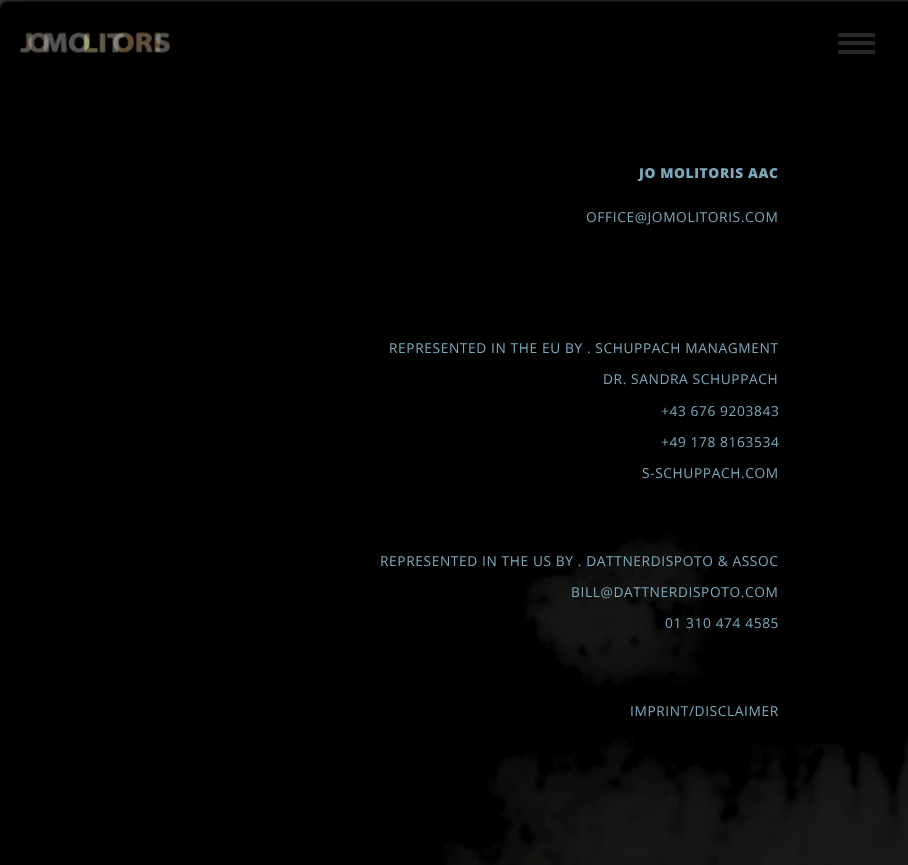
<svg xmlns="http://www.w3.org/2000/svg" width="908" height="865">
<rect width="100%" height="100%" fill="#fff"/>
<image x="0" y="0" width="908" height="865" href="media/1.png"/>
<image x="20" y="32" width="150" height="21" href="media/2.png"/>
<rect x="838" y="33" width="37" height="4" fill="#282828"/>
<rect x="838" y="41" width="37" height="4" fill="#282828"/>
<rect x="838" y="50" width="37" height="4" fill="#282828"/>
<text x="639" y="178" style="font-family:Open Sans;font-size:13.75px;font-weight:800;letter-spacing:0.6px;fill:#7da9bd">JO MOLITORIS AAC</text>
<text x="586" y="222" style="font-family:Open Sans;font-size:13.75px;letter-spacing:0.6px;fill:#7da9bd">OFFICE@JOMOLITORIS.COM</text>
<text x="389" y="353" style="font-family:Open Sans;font-size:13.75px;letter-spacing:0.6px;fill:#7da9bd">REPRESENTED IN THE EU BY . SCHUPPACH MANAGMENT</text>
<text x="603" y="384" style="font-family:Open Sans;font-size:13.75px;letter-spacing:0.6px;fill:#7da9bd">DR. SANDRA SCHUPPACH</text>
<text x="661" y="416" style="font-family:Open Sans;font-size:13.75px;letter-spacing:0.6px;fill:#7da9bd">+43 676 9203843</text>
<text x="661" y="447" style="font-family:Open Sans;font-size:13.75px;letter-spacing:0.6px;fill:#7da9bd">+49 178 8163534</text>
<text x="642" y="478" style="font-family:Open Sans;font-size:13.75px;letter-spacing:0.6px;fill:#7da9bd">S-SCHUPPACH.COM</text>
<text x="380" y="566" style="font-family:Open Sans;font-size:13.75px;letter-spacing:0.6px;fill:#7da9bd">REPRESENTED IN THE US BY . DATTNERDISPOTO &amp; ASSOC</text>
<text x="571" y="597" style="font-family:Open Sans;font-size:13.75px;letter-spacing:0.6px;fill:#7da9bd">BILL@DATTNERDISPOTO.COM</text>
<text x="665" y="628" style="font-family:Open Sans;font-size:13.75px;letter-spacing:0.6px;fill:#7da9bd">01 310 474 4585</text>
<text x="630" y="716" style="font-family:Open Sans;font-size:13.75px;letter-spacing:0.6px;fill:#7da9bd">IMPRINT/DISCLAIMER</text>
</svg>
